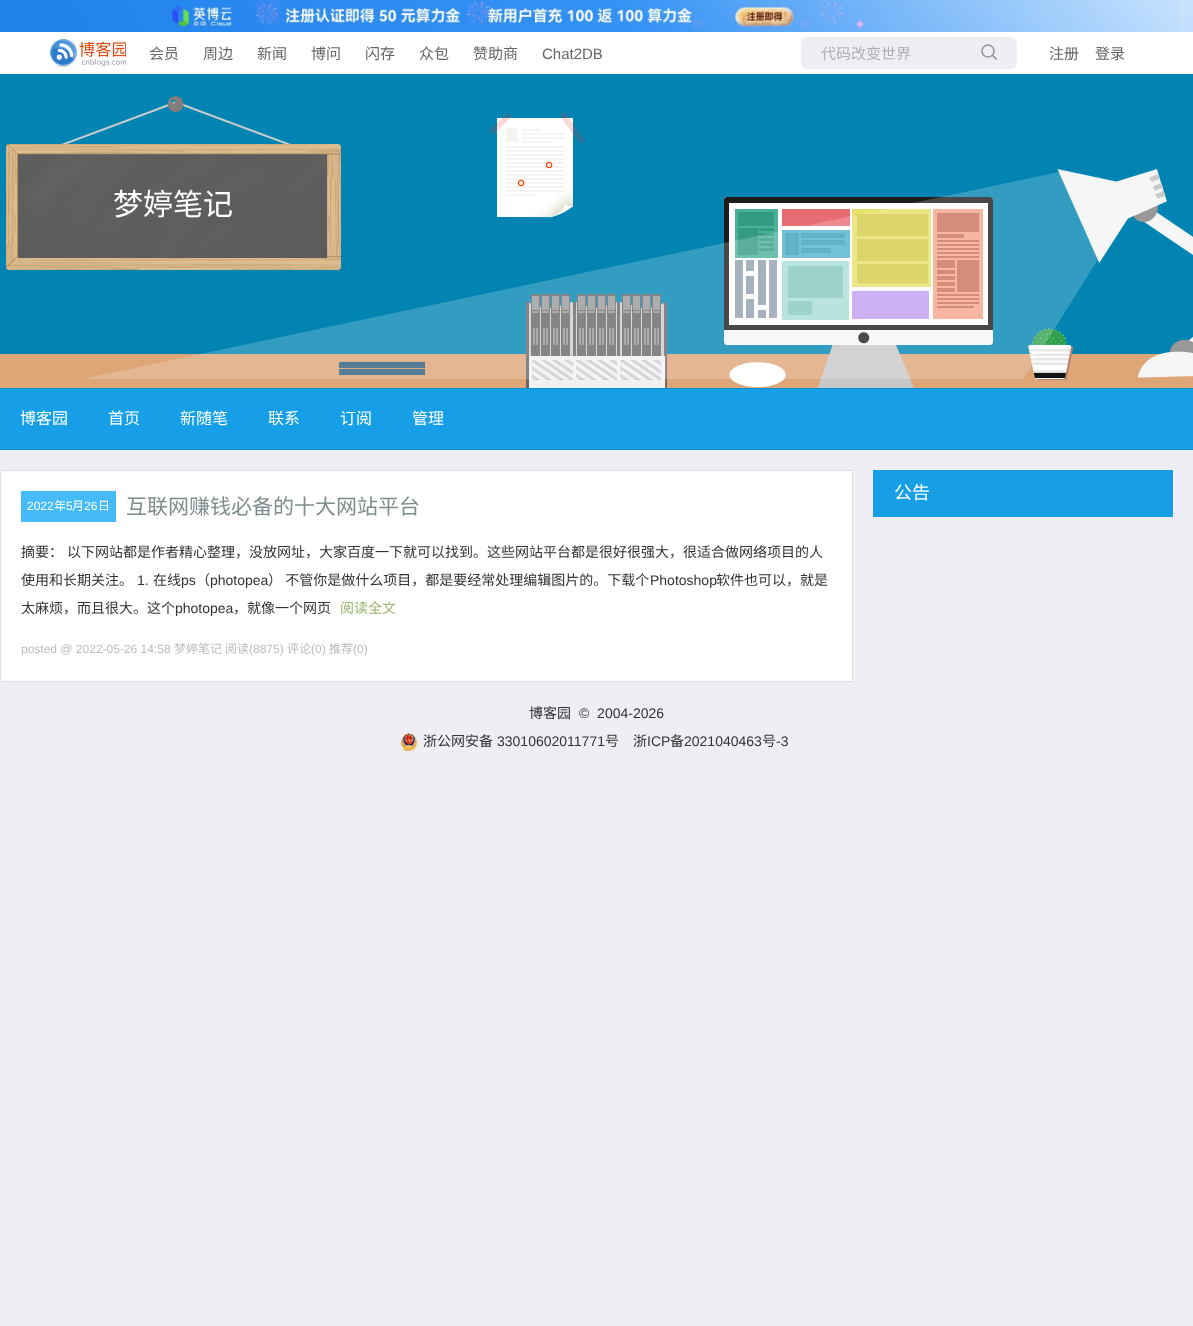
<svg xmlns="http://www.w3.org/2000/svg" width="1193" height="1326">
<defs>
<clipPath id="clip1"><rect x="981" y="44" width="16" height="16"/></clipPath>
</defs>
<rect width="100%" height="100%" fill="#f0eef5"/>
<image x="1179" y="0" width="14" height="32" href="media/1.png"/>
<image x="0" y="0" width="1179" height="32" href="media/2.png"/>
<rect y="32" width="1193" height="42" fill="#fff"/>
<image x="50" y="39" width="76" height="28" href="media/3.png"/>
<text x="149" y="59" style="font-family:Noto Sans CJK SC;font-size:15px;fill:#666">会员</text>
<text x="203" y="59" style="font-family:Noto Sans CJK SC;font-size:15px;fill:#666">周边</text>
<text x="257" y="59" style="font-family:Noto Sans CJK SC;font-size:15px;fill:#666">新闻</text>
<text x="311" y="59" style="font-family:Noto Sans CJK SC;font-size:15px;fill:#666">博问</text>
<text x="365" y="59" style="font-family:Noto Sans CJK SC;font-size:15px;fill:#666">闪存</text>
<text x="419" y="59" style="font-family:Noto Sans CJK SC;font-size:15px;fill:#666">众包</text>
<text x="473" y="59" style="font-family:Noto Sans CJK SC;font-size:15px;fill:#666">赞助商</text>
<text x="542" y="59" style="font-family:Liberation Sans;font-size:15px;fill:#666">Chat2DB</text>
<rect x="801" y="37" width="216" height="32" rx="6" fill="#f0eef5"/>
<text x="821" y="59" style="font-family:Noto Sans CJK SC;font-size:15px;fill:#afafaf">代码改变世界</text>
<circle cx="988" cy="51" r="6" fill="none" stroke="#979797" stroke-width="1.6"/>
<g clip-path="url(#clip1)">
<path d="M992 55l6 6" fill="none" stroke="#979797" stroke-width="1.6"/>
</g>
<text x="1049" y="59" style="font-family:Noto Sans CJK SC;font-size:15px;fill:#666">注册</text>
<text x="1095" y="59" style="font-family:Noto Sans CJK SC;font-size:15px;fill:#666">登录</text>
<image x="0" y="74" width="1193" height="314" href="media/4.png"/>
<image x="84" y="111" width="1109" height="277" href="media/5.png"/>
<image x="6" y="96" width="335" height="174" href="media/6.png"/>
<text x="113" y="215" style="font-family:Noto Sans CJK SC;font-size:30px;fill:#fff">梦婷笔记</text>
<rect y="389" width="1193" height="60" fill="#169fe6"/>
<rect y="388" width="1193" height="1" fill="#138cca"/>
<rect y="449" width="1193" height="1" fill="#138cca"/>
<text x="20" y="424" style="font-family:Noto Sans CJK SC;font-size:16px;fill:#fff">博客园</text>
<text x="108" y="424" style="font-family:Noto Sans CJK SC;font-size:16px;fill:#fff">首页</text>
<text x="180" y="424" style="font-family:Noto Sans CJK SC;font-size:16px;fill:#fff">新随笔</text>
<text x="268" y="424" style="font-family:Noto Sans CJK SC;font-size:16px;fill:#fff">联系</text>
<text x="340" y="424" style="font-family:Noto Sans CJK SC;font-size:16px;fill:#fff">订阅</text>
<text x="412" y="424" style="font-family:Noto Sans CJK SC;font-size:16px;fill:#fff">管理</text>
<rect x="873" y="470" width="300" height="47" fill="#169fe6"/>
<text x="894" y="499" style="font-family:Noto Sans CJK SC;font-size:18px;fill:#fff">公告</text>
<rect x="0.5" y="470.5" width="852" height="211" fill="#fff" stroke="#dedede"/>
<rect x="21" y="491" width="95" height="31" fill="#45bcf9"/>
<text x="27" y="510" style="font-family:Liberation Sans;font-size:12px;fill:#fff">2022</text>
<text x="54" y="510" style="font-family:Noto Sans CJK SC;font-size:12px;fill:#fff">年</text>
<text x="66" y="510" style="font-family:Liberation Sans;font-size:12px;fill:#fff">5</text>
<text x="72" y="510" style="font-family:Noto Sans CJK SC;font-size:12px;fill:#fff">月</text>
<text x="84" y="510" style="font-family:Liberation Sans;font-size:12px;fill:#fff">26</text>
<text x="98" y="510" style="font-family:Noto Sans CJK SC;font-size:12px;fill:#fff">日</text>
<text x="126" y="514" style="font-family:Noto Sans CJK SC;font-size:21px;fill:#7e8c8d">互联网赚钱必备的十大网站平台</text>
<text x="21" y="557" style="font-family:Noto Sans CJK SC;font-size:14px;fill:#333">摘要：</text>
<text x="67" y="557" style="font-family:Noto Sans CJK SC;font-size:14px;fill:#333">以下网站都是作者精心整理，没放网址，大家百度一下就可以找到。这些网站平台都是很好很强大，很适合做网络项目的人</text>
<text x="21" y="585" style="font-family:Noto Sans CJK SC;font-size:14px;fill:#333">使用和长期关注。</text>
<text x="137" y="585" style="font-family:Liberation Sans;font-size:14px;fill:#333">1.</text>
<text x="153" y="585" style="font-family:Noto Sans CJK SC;font-size:14px;fill:#333">在线</text>
<text x="181" y="585" style="font-family:Liberation Sans;font-size:14px;fill:#333">ps</text>
<text x="196" y="585" style="font-family:Noto Sans CJK SC;font-size:14px;fill:#333">（</text>
<text x="210" y="585" style="font-family:Liberation Sans;font-size:14px;fill:#333">photopea</text>
<text x="268" y="585" style="font-family:Noto Sans CJK SC;font-size:14px;fill:#333">） 不管你是做什么项目，都是要经常处理编辑图片的。下载个</text>
<text x="650" y="585" style="font-family:Liberation Sans;font-size:14px;fill:#333">Photoshop</text>
<text x="716" y="585" style="font-family:Noto Sans CJK SC;font-size:14px;fill:#333">软件也可以，就是</text>
<text x="21" y="613" style="font-family:Noto Sans CJK SC;font-size:14px;fill:#333">太麻烦，而且很大。这个</text>
<text x="175" y="613" style="font-family:Liberation Sans;font-size:14px;fill:#333">photopea</text>
<text x="233" y="613" style="font-family:Noto Sans CJK SC;font-size:14px;fill:#333">，就像一个网页</text>
<text x="340" y="613" style="font-family:Noto Sans CJK SC;font-size:14px;fill:#9ab26b">阅读全文</text>
<text x="21" y="653" style="font-family:Liberation Sans;font-size:12px;fill:#bcbcbc">posted @ 2022-05-26 14:58</text>
<text x="174" y="653" style="font-family:Noto Sans CJK SC;font-size:12px;fill:#bcbcbc">梦婷笔记</text>
<text x="225" y="653" style="font-family:Noto Sans CJK SC;font-size:12px;fill:#bcbcbc">阅读</text>
<text x="249" y="653" style="font-family:Liberation Sans;font-size:12px;fill:#bcbcbc">(8875)</text>
<text x="287" y="653" style="font-family:Noto Sans CJK SC;font-size:12px;fill:#bcbcbc">评论</text>
<text x="311" y="653" style="font-family:Liberation Sans;font-size:12px;fill:#bcbcbc">(0)</text>
<text x="329" y="653" style="font-family:Noto Sans CJK SC;font-size:12px;fill:#bcbcbc">推荐</text>
<text x="353" y="653" style="font-family:Liberation Sans;font-size:12px;fill:#bcbcbc">(0)</text>
<text x="529" y="718" style="font-family:Noto Sans CJK SC;font-size:14px;fill:#333">博客园</text>
<text x="579" y="718" style="font-family:Liberation Sans;font-size:14px;fill:#333" xml:space="preserve">©  2004-2026</text>
<image x="401" y="733" width="17" height="18" href="media/7.png"/>
<text x="423" y="746" style="font-family:Noto Sans CJK SC;font-size:14px;fill:#333">浙公网安备</text>
<text x="497" y="746" style="font-family:Liberation Sans;font-size:14px;fill:#333">33010602011771</text>
<text x="605" y="746" style="font-family:Noto Sans CJK SC;font-size:14px;fill:#333">号</text>
<text x="633" y="746" style="font-family:Noto Sans CJK SC;font-size:14px;fill:#333">浙</text>
<text x="647" y="746" style="font-family:Liberation Sans;font-size:14px;fill:#333">ICP</text>
<text x="670" y="746" style="font-family:Noto Sans CJK SC;font-size:14px;fill:#333">备</text>
<text x="684" y="746" style="font-family:Liberation Sans;font-size:14px;fill:#333">2021040463</text>
<text x="762" y="746" style="font-family:Noto Sans CJK SC;font-size:14px;fill:#333">号</text>
<text x="776" y="746" style="font-family:Liberation Sans;font-size:14px;fill:#333">-3</text>
</svg>
